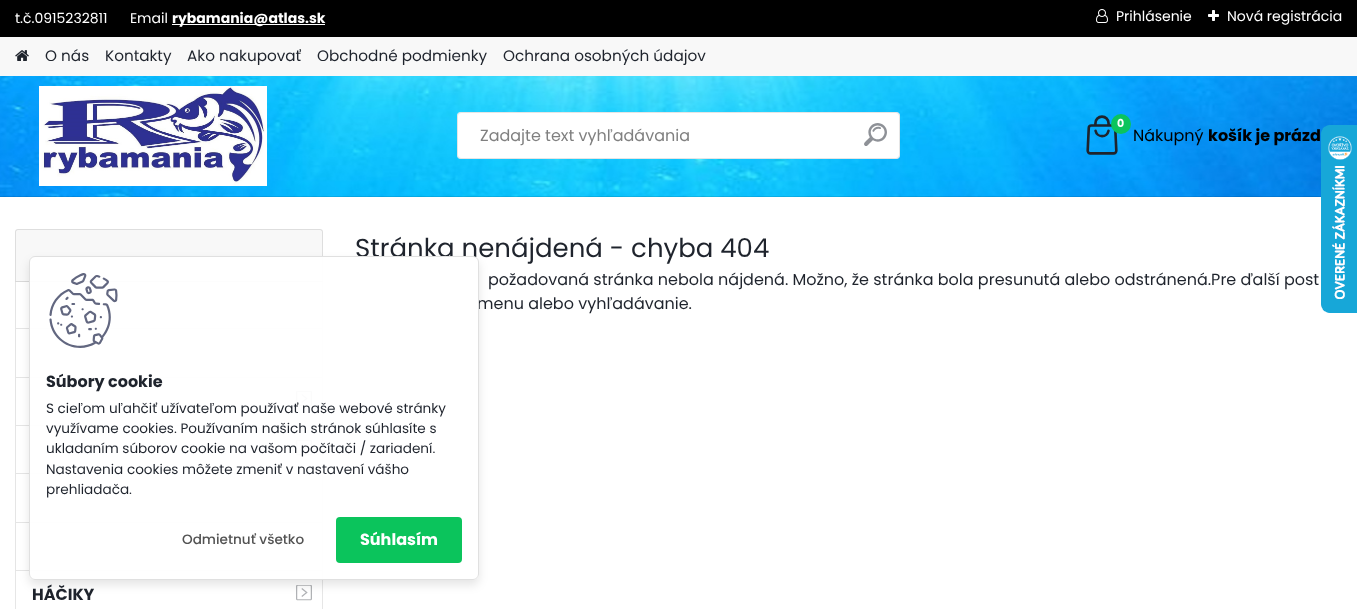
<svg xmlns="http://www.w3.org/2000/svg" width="1357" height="609">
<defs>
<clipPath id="clip1"><path d="M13 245h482v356h-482zm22 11h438c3.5 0 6 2.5 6 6v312c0 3.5-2.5 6-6 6h-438c-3.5 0-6-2.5-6-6v-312c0-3.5 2.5-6 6-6z" clip-rule="evenodd"/></clipPath>
</defs>
<rect width="100%" height="100%" fill="#fff"/>
<rect width="1357" height="37" fill="#000"/>
<text x="15" y="23" style="font-family:Poppins;font-size:14px;fill:#fff" xml:space="preserve">t.č.0915232811      Email</text>
<rect x="172" y="24" width="153" height="1" fill="#fff"/>
<text x="172" y="23" style="font-family:Poppins;font-size:14px;font-weight:bold;fill:#fff">rybamania@atlas.sk</text>
<image x="1096" y="9" width="12" height="14" href="media/1.png"/>
<text x="1116" y="21" style="font-family:Poppins;font-size:14px;fill:#fff">Prihlásenie</text>
<image x="1208" y="10" width="11" height="11" href="media/2.png"/>
<text x="1227" y="21" style="font-family:Poppins;font-size:14px;fill:#fff">Nová registrácia</text>
<image x="0" y="76" width="1357" height="121" href="media/3.png"/>
<rect y="196" width="1321" height="1" fill="#0000001a"/>
<rect y="37" width="1357" height="39" fill="#f8f8f8"/>
<image x="15" y="50" width="14" height="11" href="media/4.png"/>
<text x="45" y="61" style="font-family:Poppins;font-size:15.25px;fill:#1f242d">O nás</text>
<text x="105" y="61" style="font-family:Poppins;font-size:15.25px;fill:#1f242d">Kontakty</text>
<text x="187" y="61" style="font-family:Poppins;font-size:15.25px;fill:#1f242d">Ako nakupovať</text>
<text x="317" y="61" style="font-family:Poppins;font-size:15.25px;fill:#1f242d">Obchodné podmienky</text>
<text x="503" y="61" style="font-family:Poppins;font-size:15.25px;fill:#1f242d">Ochrana osobných údajov</text>
<image x="39" y="86" width="228" height="100" href="media/5.png"/>
<rect x="457" y="112" width="443" height="47" rx="4" fill="#fff"/>
<rect x="457.5" y="112.5" width="442" height="46" rx="3.5" fill="none" stroke="#0000001a"/>
<text x="480" y="141" style="font-family:Poppins;font-size:16px;fill:#808080">Zadajte text vyhľadávania</text>
<image x="864" y="123" width="23" height="23" href="media/6.png"/>
<image x="1086" y="115" width="32" height="40" href="media/7.png"/>
<circle cx="1121" cy="124" r="10" fill="#0bc45c"/>
<text x="1117" y="127" style="font-family:Poppins;font-size:11px;font-weight:bold;fill:#fff">0</text>
<text x="1133" y="141" style="font-family:Poppins;font-size:16px;fill:#000">Nákupný</text>
<text x="1208" y="141" style="font-family:Poppins;font-size:16px;font-weight:bold;fill:#000">košík je prázd</text>
<text x="355" y="257" style="font-family:Poppins;font-size:26px;fill:#1f242d">Stránka nenájdená - chyba 404</text>
<text x="488" y="285" style="font-family:Poppins;font-size:16px;fill:#1f242d">požadovaná stránka nebola nájdená. Možno, že stránka bola presunutá alebo odstránená.Pre ďalší post</text>
<text x="477" y="309" style="font-family:Poppins;font-size:16px;fill:#1f242d">menu alebo vyhľadávanie.</text>
<path d="M323 281v48l-1-1v-47z" fill="#e6e6e6"/>
<path d="M323 329h-308l1-1h306z" fill="#0000001a"/>
<path d="M15 329v-48h1v47z" fill="#0000001a"/>
<rect x="15" y="281" width="308" height="1" fill="#d9d9d9"/>
<path d="M18 229h302c1.5 0 3 1.5 3 3v49h-308v-49c0-1.5 1.5-3 3-3z" fill="#f8f8f8"/>
<path d="M18 229h302c2 0 3 1 3 3v49h-308v-49c0-2 1-3 3-3zm0 1h302c1 0 2 1 2 2v49h-306v-49c0-1 1-2 2-2z" fill="#0000001a" fill-rule="evenodd"/>
<path d="M323 329v49l-1-1v-48z" fill="#e6e6e6"/>
<path d="M323 378h-308l1-1h306z" fill="#0000001a"/>
<path d="M15 378v-49h1v48z" fill="#0000001a"/>
<path d="M323 378v48l-1-1v-47z" fill="#e6e6e6"/>
<path d="M323 426h-308l1-1h306z" fill="#0000001a"/>
<path d="M15 426v-48h1v47z" fill="#0000001a"/>
<image x="296" y="391" width="16" height="16" href="media/8.png"/>
<path d="M323 426v48l-1-1v-47z" fill="#e6e6e6"/>
<path d="M323 474h-308l1-1h306z" fill="#0000001a"/>
<path d="M15 474v-48h1v47z" fill="#0000001a"/>
<image x="296" y="440" width="16" height="16" href="media/8.png"/>
<path d="M323 474v49l-1-1v-48z" fill="#e6e6e6"/>
<path d="M323 523h-308l1-1h306z" fill="#0000001a"/>
<path d="M15 523v-49h1v48z" fill="#0000001a"/>
<path d="M323 523v48l-1-1v-47z" fill="#e6e6e6"/>
<path d="M323 571h-308l1-1h306z" fill="#0000001a"/>
<path d="M15 571v-48h1v47z" fill="#0000001a"/>
<path d="M323 571v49l-1-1v-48z" fill="#e6e6e6"/>
<path d="M15 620v-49h1v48z" fill="#e6e6e6"/>
<text x="32" y="600" style="font-family:Poppins;font-size:16px;font-weight:bold;fill:#1f242d">HÁČIKY</text>
<image x="296" y="585" width="16" height="16" href="media/8.png"/>
<image x="1321" y="125" width="36" height="188" href="media/9.png"/>
<g clip-path="url(#clip1)">
<rect x="29" y="261" width="450" height="324" rx="6" fill="#0000001a" filter="blur(5px)"/>
</g>
<rect x="29.5" y="256.5" width="449" height="323" rx="5.5" fill="#fffffff2" stroke="#e0e0e0"/>
<image x="49" y="273" width="69" height="75" href="media/10.png"/>
<text x="46" y="387" style="font-family:Poppins;font-size:16px;font-weight:bold;fill:#1f242d">Súbory cookie</text>
<text x="46" y="413" style="font-family:Poppins;font-size:13.6px;fill:#1f242d">S cieľom uľahčiť užívateľom používať naše webové stránky</text>
<text x="46" y="433" style="font-family:Poppins;font-size:13.6px;fill:#1f242d">využívame cookies. Používaním našich stránok súhlasíte s</text>
<text x="46" y="453" style="font-family:Poppins;font-size:13.6px;fill:#1f242d">ukladaním súborov cookie na vašom počítači / zariadení.</text>
<text x="46" y="474" style="font-family:Poppins;font-size:13.6px;fill:#1f242d">Nastavenia cookies môžete zmeniť v nastavení vášho</text>
<text x="46" y="494" style="font-family:Poppins;font-size:13.6px;fill:#1f242d">prehliadača.</text>
<text x="182" y="544" style="font-family:Poppins;font-size:13.6px;font-weight:500;fill:#535353">Odmietnuť všetko</text>
<rect x="336" y="517" width="126" height="46" rx="4" fill="#0bc45c"/>
<text x="360" y="545" style="font-family:Poppins;font-size:16px;font-weight:bold;fill:#fff">Súhlasím</text>
</svg>
